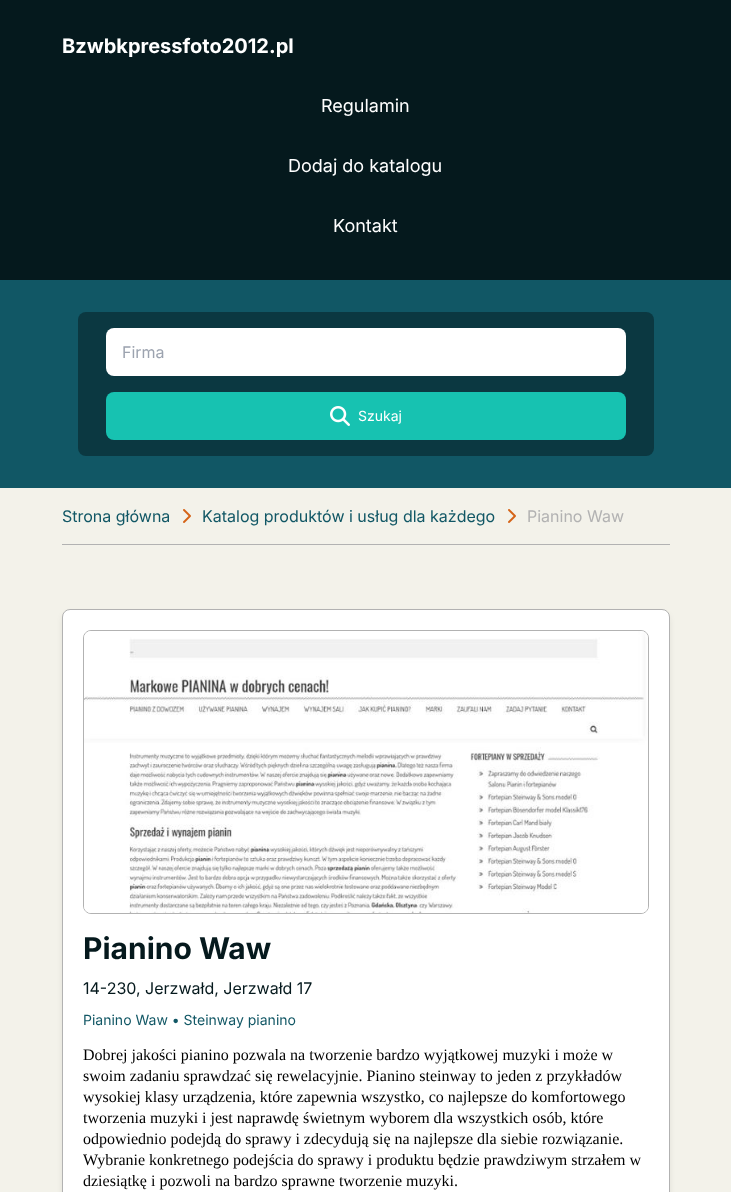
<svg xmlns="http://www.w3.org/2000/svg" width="731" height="1192">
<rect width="100%" height="100%" fill="#f3f2ea"/>
<rect width="731" height="280" fill="#05191d"/>
<text x="62" y="53" style="font-family:Inter;font-size:20px;font-weight:bold;fill:#fff">Bzwbkpressfoto2012.pl</text>
<text x="321" y="112" style="font-family:Inter;font-size:18px;fill:#fff">Regulamin</text>
<text x="288" y="172" style="font-family:Inter;font-size:18px;fill:#fff">Dodaj do katalogu</text>
<text x="333" y="232" style="font-family:Inter;font-size:18px;fill:#fff">Kontakt</text>
<rect y="280" width="731" height="208" fill="#115765"/>
<rect x="78" y="312" width="576" height="144" rx="8" fill="#0b3841"/>
<rect x="106" y="328" width="520" height="48" rx="8" fill="#fff"/>
<text x="122" y="358" style="font-family:Inter;font-size:16px;fill:#9ca3af">Firma</text>
<rect x="106" y="392" width="520" height="48" rx="8" fill="#17c2b1"/>
<image x="330" y="406" width="20" height="20" href="media/1.png"/>
<text x="358" y="421" style="font-family:Inter;font-size:14px;fill:#fff">Szukaj</text>
<rect x="62" y="544" width="608" height="1" fill="#b2b2b2"/>
<text x="62" y="522" style="font-family:Inter;font-size:16px;fill:#115765">Strona główna</text>
<image x="183" y="509" width="8" height="14" href="media/2.png"/>
<text x="202" y="522" style="font-family:Inter;font-size:16px;fill:#115765">Katalog produktów i usług dla każdego</text>
<image x="508" y="509" width="8" height="14" href="media/2.png"/>
<text x="527" y="522" style="font-family:Inter;font-size:16px;fill:#b2b2b2">Pianino Waw</text>
<rect x="63" y="614" width="606" height="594" rx="7" fill="#0000001a" filter="blur(3px)"/>
<rect x="62.5" y="609.5" width="607" height="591" rx="7.5" fill="#fff" stroke="#b2b2b2"/>
<rect x="83.5" y="630.5" width="565" height="283" rx="7.5" fill="none" stroke="#b2b2b2"/>
<image x="84" y="631" width="564" height="282" href="media/3.png"/>
<text x="83" y="959" style="font-family:Inter;font-size:30px;font-weight:bold;fill:#05191d">Pianino Waw</text>
<text x="83" y="994" style="font-family:Inter;font-size:16px;fill:#05191d">14-230, Jerzwałd, Jerzwałd 17</text>
<text x="83" y="1025" style="font-family:Inter;font-size:14px;fill:#115765">Pianino Waw • Steinway pianino</text>
<text x="83" y="1060" style="font-family:Liberation Serif;font-size:16px;fill:#000">Dobrej jakości pianino pozwala na tworzenie bardzo wyjątkowej muzyki i może w</text>
<text x="83" y="1081" style="font-family:Liberation Serif;font-size:16px;fill:#000">swoim zadaniu sprawdzać się rewelacyjnie. Pianino steinway to jeden z przykładów</text>
<text x="83" y="1102" style="font-family:Liberation Serif;font-size:16px;fill:#000">wysokiej klasy urządzenia, które zapewnia wszystko, co najlepsze do komfortowego</text>
<text x="83" y="1123" style="font-family:Liberation Serif;font-size:16px;fill:#000">tworzenia muzyki i jest naprawdę świetnym wyborem dla wszystkich osób, które</text>
<text x="83" y="1144" style="font-family:Liberation Serif;font-size:16px;fill:#000">odpowiednio podejdą do sprawy i zdecydują się na najlepsze dla siebie rozwiązanie.</text>
<text x="83" y="1165" style="font-family:Liberation Serif;font-size:16px;fill:#000">Wybranie konkretnego podejścia do sprawy i produktu będzie prawdziwym strzałem w</text>
<text x="83" y="1186" style="font-family:Liberation Serif;font-size:16px;fill:#000">dziesiątkę i pozwoli na bardzo sprawne tworzenie muzyki.</text>
</svg>
